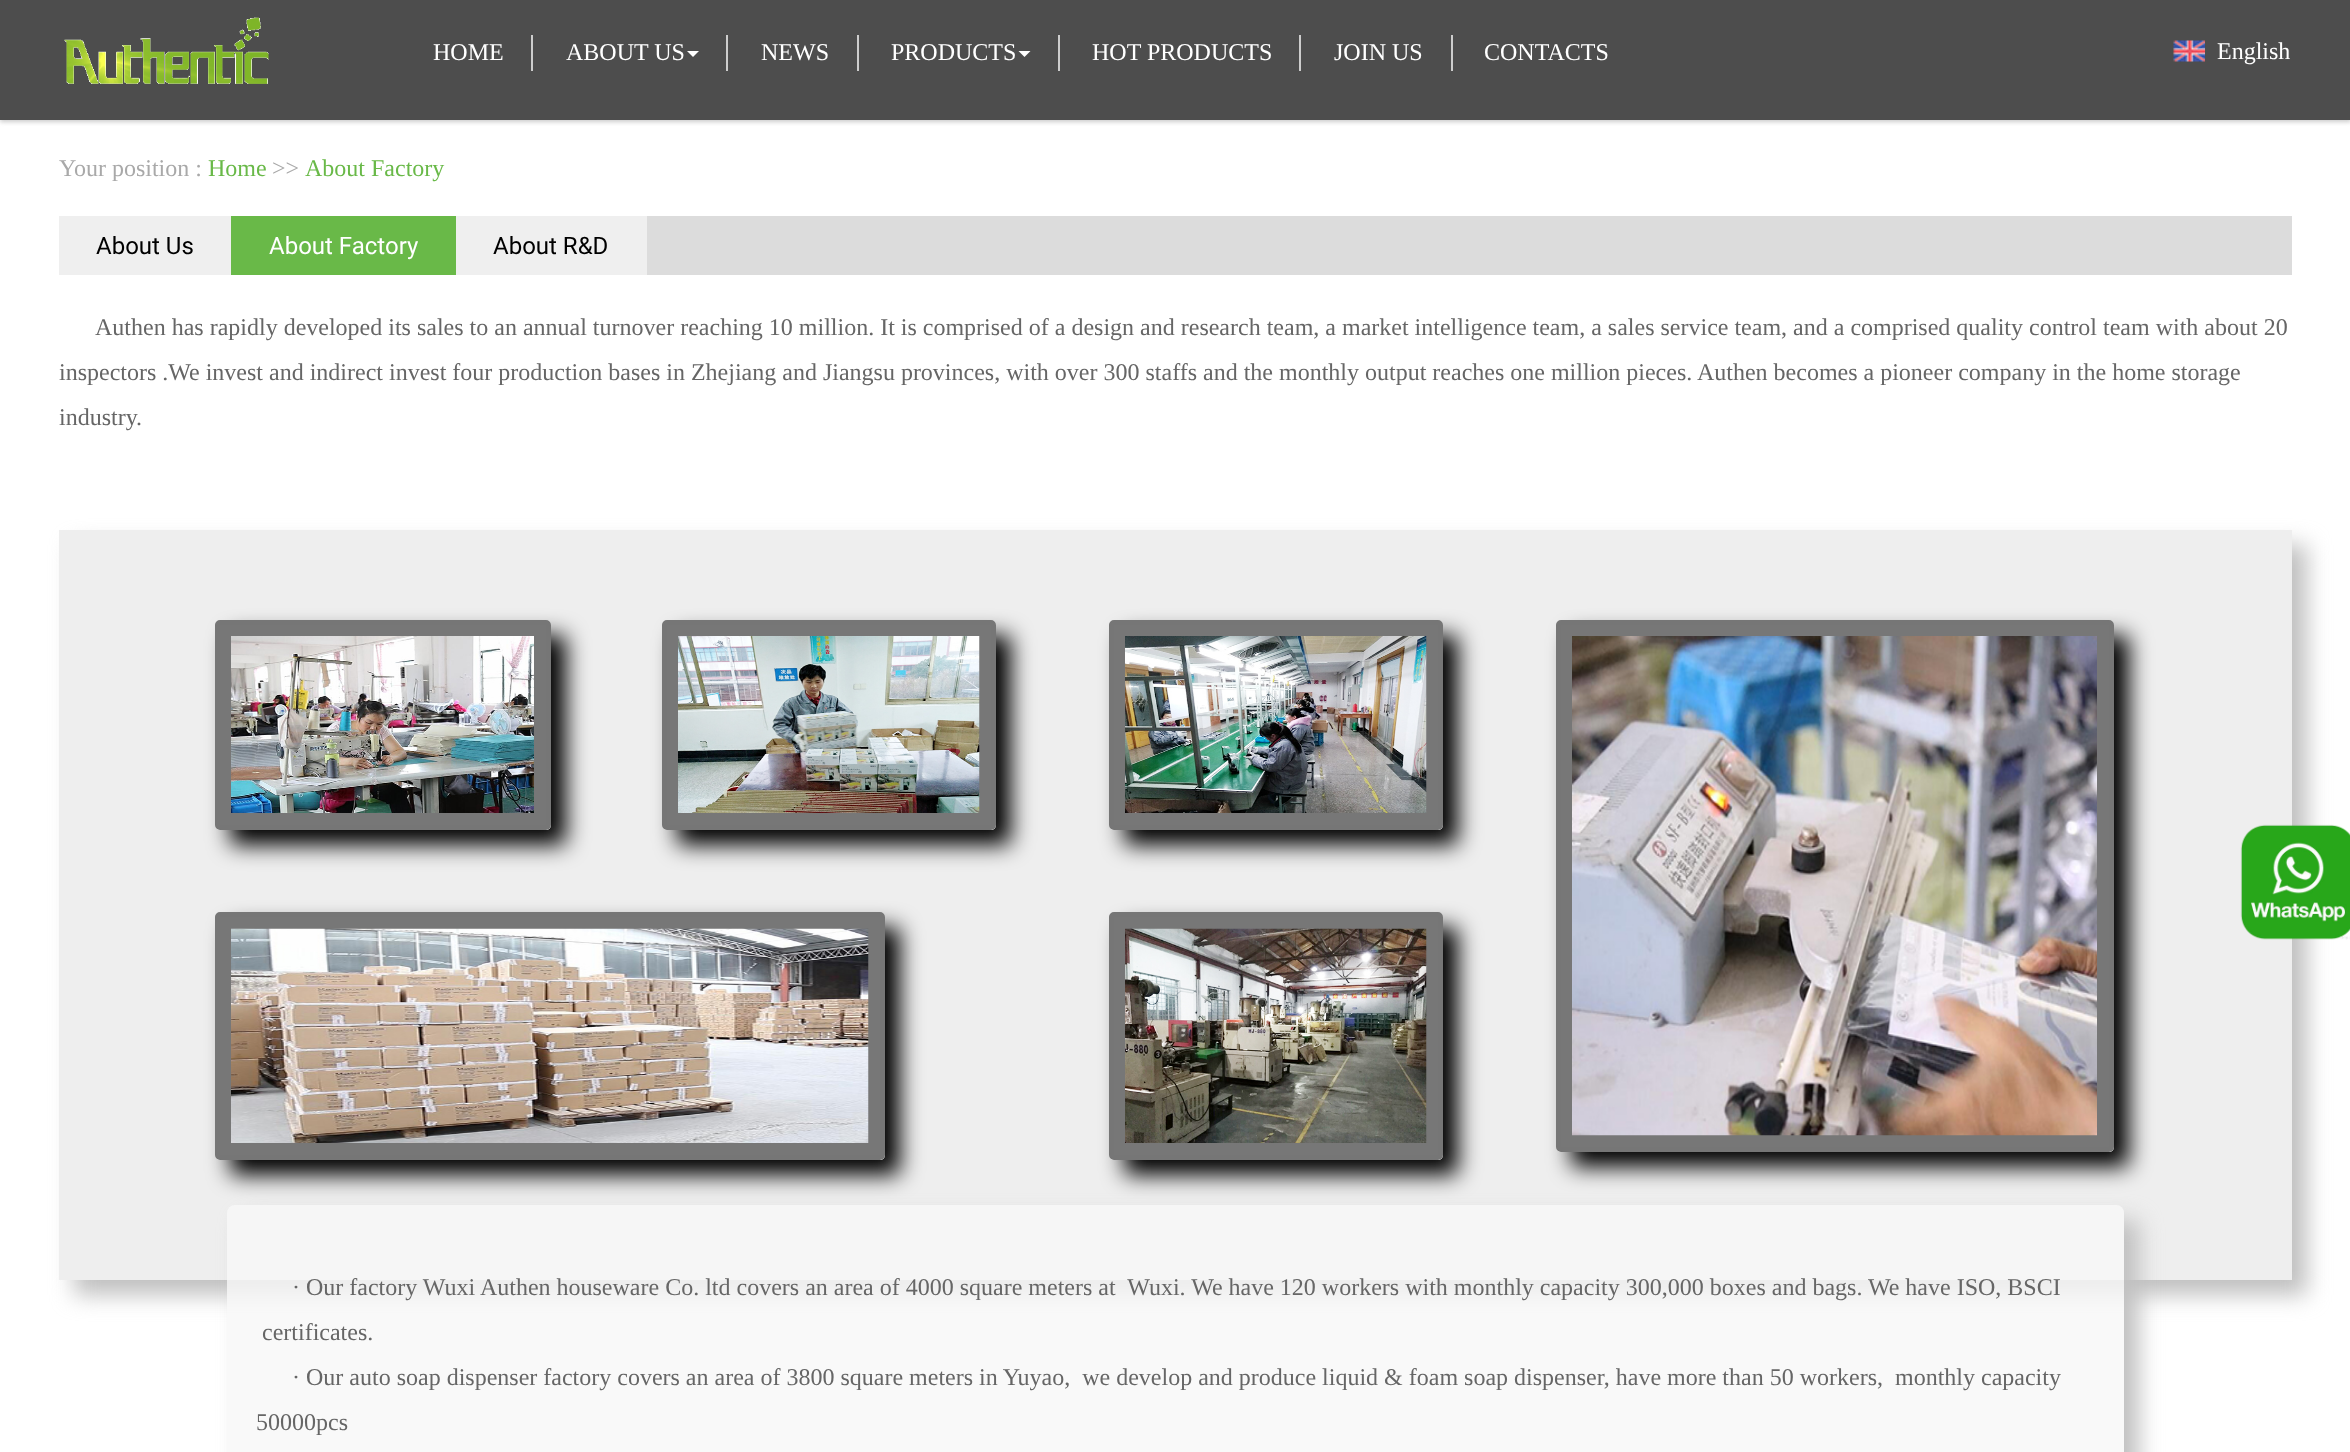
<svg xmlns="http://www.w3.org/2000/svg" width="2350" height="1452">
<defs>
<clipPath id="clip1"><path d="M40 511h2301v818h-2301zm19 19h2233v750h-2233z" clip-rule="evenodd"/></clipPath>
<clipPath id="clip2"><path d="M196 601h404v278h-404zm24 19h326c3 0 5 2 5 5v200c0 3-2 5-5 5h-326c-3 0-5-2-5-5v-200c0-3 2-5 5-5z" clip-rule="evenodd"/></clipPath>
<clipPath id="clip3"><path d="M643 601h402v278h-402zm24 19h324c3 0 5 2 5 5v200c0 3-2 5-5 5h-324c-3 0-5-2-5-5v-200c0-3 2-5 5-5z" clip-rule="evenodd"/></clipPath>
<clipPath id="clip4"><path d="M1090 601h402v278h-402zm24 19h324c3 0 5 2 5 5v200c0 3-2 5-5 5h-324c-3 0-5-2-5-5v-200c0-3 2-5 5-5z" clip-rule="evenodd"/></clipPath>
<clipPath id="clip5"><path d="M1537 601h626v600h-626zm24 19h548c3 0 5 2 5 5v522c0 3-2 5-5 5h-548c-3 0-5-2-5-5v-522c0-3 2-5 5-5z" clip-rule="evenodd"/></clipPath>
<clipPath id="clip6"><path d="M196 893h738v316h-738zm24 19h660c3 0 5 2 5 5v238c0 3-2 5-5 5h-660c-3 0-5-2-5-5v-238c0-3 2-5 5-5z" clip-rule="evenodd"/></clipPath>
<clipPath id="clip7"><path d="M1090 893h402v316h-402zm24 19h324c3 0 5 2 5 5v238c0 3-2 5-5 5h-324c-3 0-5-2-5-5v-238c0-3 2-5 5-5z" clip-rule="evenodd"/></clipPath>
<clipPath id="clip8"><path d="M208 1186h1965v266h-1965zm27 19h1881c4.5 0 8 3.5 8 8v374c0 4.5-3.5 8-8 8h-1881c-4.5 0-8-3.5-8-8v-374c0-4.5 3.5-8 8-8z" clip-rule="evenodd"/></clipPath>
</defs>
<rect width="100%" height="100%" fill="#fff"/>
<rect y="2" width="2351" height="120" fill="#ccc" filter="blur(2px)"/>
<rect width="2350" height="120" fill="#4d4d4d"/>
<image x="64" y="17" width="205" height="67" href="media/1.png"/>
<rect x="531" y="35" width="2" height="36" fill="#cdcdcd"/>
<text x="433" y="60" style="font-family:Liberation Serif;font-size:24px;fill:#fff">HOME</text>
<rect x="726" y="35" width="2" height="36" fill="#cdcdcd"/>
<text x="566" y="60" style="font-family:Liberation Serif;font-size:24px;fill:#fff">ABOUT US</text>
<path d="M687 51h12l-6 6z" fill="#fff"/>
<rect x="857" y="35" width="2" height="36" fill="#cdcdcd"/>
<text x="761" y="60" style="font-family:Liberation Serif;font-size:24px;fill:#fff">NEWS</text>
<rect x="1058" y="35" width="2" height="36" fill="#cdcdcd"/>
<text x="891" y="60" style="font-family:Liberation Serif;font-size:24px;fill:#fff">PRODUCTS</text>
<path d="M1018.5 51h12l-6 6z" fill="#fff"/>
<rect x="1299" y="35" width="2" height="36" fill="#cdcdcd"/>
<text x="1092" y="60" style="font-family:Liberation Serif;font-size:24px;fill:#fff">HOT PRODUCTS</text>
<rect x="1451" y="35" width="2" height="36" fill="#cdcdcd"/>
<text x="1334" y="60" style="font-family:Liberation Serif;font-size:24px;fill:#fff">JOIN US</text>
<text x="1484" y="60" style="font-family:Liberation Serif;font-size:24px;fill:#fff">CONTACTS</text>
<image x="2173" y="40" width="32" height="22" href="media/2.png"/>
<text x="2217" y="59" style="font-family:Liberation Serif;font-size:24px;fill:#fff">English</text>
<text x="59" y="176" style="font-family:Liberation Serif;font-size:24px;fill:#a9a9a9">Your position :</text>
<text x="208" y="176" style="font-family:Liberation Serif;font-size:24px;fill:#69b948">Home</text>
<text x="272" y="176" style="font-family:Liberation Serif;font-size:24px;fill:#a9a9a9">&gt;&gt;</text>
<text x="305" y="176" style="font-family:Liberation Serif;font-size:24px;fill:#69b948">About Factory</text>
<rect x="647" y="216" width="1645" height="59" fill="#dcdcdc"/>
<rect x="59" y="216" width="172" height="59" fill="#efefef"/>
<text x="96" y="254" style="font-family:Roboto;font-size:24px;fill:#000">About Us</text>
<rect x="231" y="216" width="225" height="59" fill="#69b948"/>
<text x="269" y="254" style="font-family:Roboto;font-size:24px;fill:#fff">About Factory</text>
<rect x="456" y="216" width="191" height="59" fill="#efefef"/>
<text x="493" y="254" style="font-family:Roboto;font-size:24px;fill:#000">About R&amp;D</text>
<text x="95" y="335" style="font-family:Liberation Serif;font-size:24px;fill:#666">Authen has rapidly developed its sales to an annual turnover reaching 10 million. It is comprised of a design and research team, a market intelligence team, a sales service team, and a comprised quality control team with about 20</text>
<text x="59" y="380" style="font-family:Liberation Serif;font-size:24px;fill:#666">inspectors .We invest and indirect invest four production bases in Zhejiang and Jiangsu provinces, with over 300 staffs and the monthly output reaches one million pieces. Authen becomes a pioneer company in the home storage</text>
<text x="59" y="425" style="font-family:Liberation Serif;font-size:24px;fill:#666">industry.</text>
<rect x="59" y="530" width="2233" height="750" fill="#eee"/>
<g clip-path="url(#clip1)">
<rect x="74" y="545" width="2233" height="750" fill="#c0c0c0" filter="blur(11px)"/>
</g>
<g clip-path="url(#clip2)">
<rect x="230" y="635" width="336" height="210" rx="5" fill="#000" filter="blur(11px)"/>
</g>
<rect x="217.5" y="622.5" width="331" height="205" rx="2.5" fill="#00000080" stroke="#767676" stroke-width="5"/>
<image x="231" y="636" width="303" height="177" href="media/3.png"/>
<g clip-path="url(#clip3)">
<rect x="677" y="635" width="334" height="210" rx="5" fill="#000" filter="blur(11px)"/>
</g>
<rect x="664.5" y="622.5" width="329" height="205" rx="2.5" fill="#00000080" stroke="#767676" stroke-width="5"/>
<image x="678" y="636" width="302" height="177" href="media/4.png"/>
<g clip-path="url(#clip4)">
<rect x="1124" y="635" width="334" height="210" rx="5" fill="#000" filter="blur(11px)"/>
</g>
<rect x="1111.5" y="622.5" width="329" height="205" rx="2.5" fill="#00000080" stroke="#767676" stroke-width="5"/>
<image x="1125" y="636" width="302" height="177" href="media/5.png"/>
<g clip-path="url(#clip5)">
<rect x="1571" y="635" width="558" height="532" rx="5" fill="#000" filter="blur(11px)"/>
</g>
<rect x="1558.5" y="622.5" width="553" height="527" rx="2.5" fill="#00000080" stroke="#767676" stroke-width="5"/>
<image x="1572" y="636" width="525" height="500" href="media/6.png"/>
<g clip-path="url(#clip6)">
<rect x="230" y="927" width="670" height="248" rx="5" fill="#000" filter="blur(11px)"/>
</g>
<rect x="217.5" y="914.5" width="665" height="243" rx="2.5" fill="#00000080" stroke="#767676" stroke-width="5"/>
<image x="231" y="928" width="638" height="215" href="media/7.png"/>
<g clip-path="url(#clip7)">
<rect x="1124" y="927" width="334" height="248" rx="5" fill="#000" filter="blur(11px)"/>
</g>
<rect x="1111.5" y="914.5" width="329" height="243" rx="2.5" fill="#00000080" stroke="#767676" stroke-width="5"/>
<image x="1125" y="928" width="302" height="215" href="media/8.png"/>
<g clip-path="url(#clip8)">
<rect x="242" y="1220" width="1897" height="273" rx="8" fill="#c0c0c0" filter="blur(11px)"/>
</g>
<rect x="227" y="1205" width="1897" height="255" rx="8" fill="#f8f8f8cc"/>
<text x="292" y="1295" style="font-family:Liberation Serif;font-size:24px;fill:#666" xml:space="preserve">· Our factory Wuxi Authen houseware Co. ltd covers an area of 4000 square meters at  Wuxi. We have 120 workers with monthly capacity 300,000 boxes and bags. We have ISO, BSCI</text>
<text x="262" y="1340" style="font-family:Liberation Serif;font-size:24px;fill:#666">certificates.</text>
<text x="292" y="1385" style="font-family:Liberation Serif;font-size:24px;fill:#666" xml:space="preserve">· Our auto soap dispenser factory covers an area of 3800 square meters in Yuyao,  we develop and produce liquid &amp; foam soap dispenser, have more than 50 workers,  monthly capacity</text>
<text x="256" y="1430" style="font-family:Liberation Serif;font-size:24px;fill:#666">50000pcs</text>
<image x="2240" y="824" width="110" height="116" href="media/9.png"/>
</svg>
